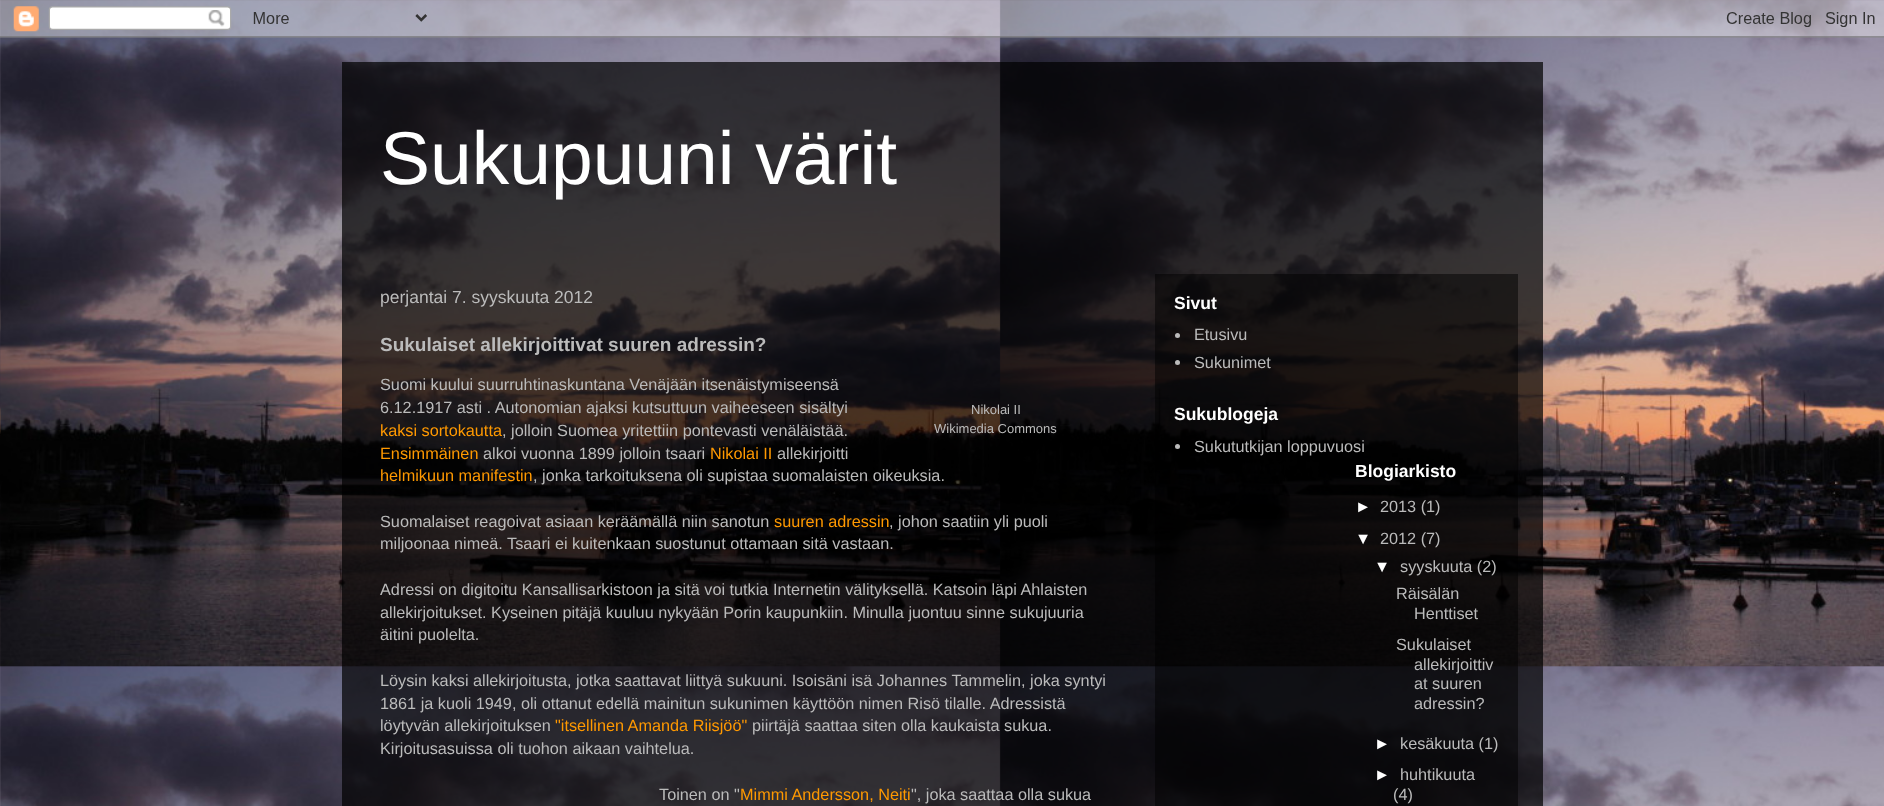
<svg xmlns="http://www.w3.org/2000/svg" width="1884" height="806">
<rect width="100%" height="100%" fill="#fff"/>
<image x="0" y="0" width="1884" height="806" href="media/1.png"/>
<image x="0" y="0" width="1884" height="38" href="media/2.png"/>
<rect x="342" y="62" width="1201" height="744" fill="#000000b3"/>
<text x="380" y="184" style="font-family:Liberation Sans;font-size:75px;fill:#fff">Sukupuuni värit</text>
<rect x="1155" y="274" width="363" height="532" fill="#00000080"/>
<text x="380" y="303" style="font-family:Liberation Sans;font-size:17.5px;fill:#bbb">perjantai 7. syyskuuta 2012</text>
<text x="380" y="351" style="font-family:Liberation Sans;font-size:19px;font-weight:bold;fill:#bbb">Sukulaiset allekirjoittivat suuren adressin?</text>
<text x="380" y="390" style="font-family:Liberation Sans;font-size:16.25px;fill:#bbb">Suomi kuului suurruhtinaskuntana Venäjään itsenäistymiseensä</text>
<text x="380" y="413" style="font-family:Liberation Sans;font-size:16.25px;fill:#bbb">6.12.1917 asti . Autonomian ajaksi kutsuttuun vaiheeseen sisältyi</text>
<text x="971" y="414" style="font-family:Liberation Sans;font-size:13px;fill:#bbb">Nikolai II</text>
<text x="934" y="433" style="font-family:Liberation Sans;font-size:13px;fill:#bbb">Wikimedia Commons</text>
<text x="380" y="436" style="font-family:Liberation Sans;font-size:16.25px;fill:#f90">kaksi sortokautta</text>
<text x="502" y="436" style="font-family:Liberation Sans;font-size:16.25px;fill:#bbb">, jolloin Suomea yritettiin pontevasti venäläistää.</text>
<text x="380" y="459" style="font-family:Liberation Sans;font-size:16.25px;fill:#f90">Ensimmäinen</text>
<text x="483" y="459" style="font-family:Liberation Sans;font-size:16.25px;fill:#bbb">alkoi vuonna 1899 jolloin tsaari</text>
<text x="710" y="459" style="font-family:Liberation Sans;font-size:16.25px;fill:#f90">Nikolai II</text>
<text x="777" y="459" style="font-family:Liberation Sans;font-size:16.25px;fill:#bbb">allekirjoitti</text>
<text x="380" y="481" style="font-family:Liberation Sans;font-size:16.25px;fill:#f90">helmikuun manifestin</text>
<text x="533" y="481" style="font-family:Liberation Sans;font-size:16.25px;fill:#bbb">, jonka tarkoituksena oli supistaa suomalaisten oikeuksia.</text>
<text x="380" y="527" style="font-family:Liberation Sans;font-size:16.25px;fill:#bbb">Suomalaiset reagoivat asiaan keräämällä niin sanotun</text>
<text x="774" y="527" style="font-family:Liberation Sans;font-size:16.25px;fill:#f90">suuren adressin</text>
<text x="889" y="527" style="font-family:Liberation Sans;font-size:16.25px;fill:#bbb">, johon saatiin yli puoli</text>
<text x="380" y="549" style="font-family:Liberation Sans;font-size:16.25px;fill:#bbb">miljoonaa nimeä. Tsaari ei kuitenkaan suostunut ottamaan sitä vastaan.</text>
<text x="380" y="595" style="font-family:Liberation Sans;font-size:16.25px;fill:#bbb">Adressi on digitoitu Kansallisarkistoon ja sitä voi tutkia Internetin välityksellä. Katsoin läpi Ahlaisten</text>
<text x="380" y="618" style="font-family:Liberation Sans;font-size:16.25px;fill:#bbb">allekirjoitukset. Kyseinen pitäjä kuuluu nykyään Porin kaupunkiin. Minulla juontuu sinne sukujuuria</text>
<text x="380" y="640" style="font-family:Liberation Sans;font-size:16.25px;fill:#bbb">äitini puolelta.</text>
<text x="380" y="686" style="font-family:Liberation Sans;font-size:16.25px;fill:#bbb">Löysin kaksi allekirjoitusta, jotka saattavat liittyä sukuuni. Isoisäni isä Johannes Tammelin, joka syntyi</text>
<text x="380" y="709" style="font-family:Liberation Sans;font-size:16.25px;fill:#bbb">1861 ja kuoli 1949, oli ottanut edellä mainitun sukunimen käyttöön nimen Risö tilalle. Adressistä</text>
<text x="380" y="731" style="font-family:Liberation Sans;font-size:16.25px;fill:#bbb">löytyvän allekirjoituksen</text>
<text x="555" y="731" style="font-family:Liberation Sans;font-size:16.25px;fill:#f90">"itsellinen Amanda Riisjöö"</text>
<text x="752" y="731" style="font-family:Liberation Sans;font-size:16.25px;fill:#bbb">piirtäjä saattaa siten olla kaukaista sukua.</text>
<text x="380" y="754" style="font-family:Liberation Sans;font-size:16.25px;fill:#bbb">Kirjoitusasuissa oli tuohon aikaan vaihtelua.</text>
<text x="659" y="800" style="font-family:Liberation Sans;font-size:16.25px;fill:#bbb">Toinen on "</text>
<text x="740" y="800" style="font-family:Liberation Sans;font-size:16.25px;fill:#f90">Mimmi Andersson, Neiti</text>
<text x="911" y="800" style="font-family:Liberation Sans;font-size:16.25px;fill:#bbb">", joka saattaa olla sukua</text>
<text x="1174" y="309" style="font-family:Liberation Sans;font-size:17.5px;font-weight:bold;fill:#fff">Sivut</text>
<circle cx="1177.5" cy="335.5" r="2.5" fill="#bbb"/>
<text x="1194" y="340" style="font-family:Liberation Sans;font-size:16.25px;fill:#bbb">Etusivu</text>
<circle cx="1177.5" cy="362.5" r="2.5" fill="#bbb"/>
<text x="1194" y="368" style="font-family:Liberation Sans;font-size:16.25px;fill:#bbb">Sukunimet</text>
<text x="1174" y="420" style="font-family:Liberation Sans;font-size:17.5px;font-weight:bold;fill:#fff">Sukublogeja</text>
<circle cx="1177.5" cy="446.5" r="2.5" fill="#bbb"/>
<text x="1194" y="452" style="font-family:Liberation Sans;font-size:16.25px;fill:#bbb">Sukututkijan loppuvuosi</text>
<text x="1355" y="477" style="font-family:Liberation Sans;font-size:17.5px;font-weight:bold;fill:#fff">Blogiarkisto</text>
<text x="1355" y="512" style="font-family:Liberation Sans;font-size:16.25px;fill:#fff">►</text>
<text x="1380" y="512" style="font-family:Liberation Sans;font-size:16.25px;fill:#bbb">2013 (1)</text>
<text x="1355" y="544" style="font-family:Liberation Sans;font-size:16.25px;fill:#fff">▼</text>
<text x="1380" y="544" style="font-family:Liberation Sans;font-size:16.25px;fill:#bbb">2012 (7)</text>
<text x="1374" y="572" style="font-family:Liberation Sans;font-size:16.25px;fill:#fff">▼</text>
<text x="1400" y="572" style="font-family:Liberation Sans;font-size:16.25px;fill:#bbb">syyskuuta (2)</text>
<text x="1396" y="599" style="font-family:Liberation Sans;font-size:16.25px;fill:#bbb">Räisälän</text>
<text x="1414" y="619" style="font-family:Liberation Sans;font-size:16.25px;fill:#bbb">Henttiset</text>
<text x="1396" y="650" style="font-family:Liberation Sans;font-size:16.25px;fill:#bbb">Sukulaiset</text>
<text x="1414" y="670" style="font-family:Liberation Sans;font-size:16.25px;fill:#bbb">allekirjoittiv</text>
<text x="1414" y="689" style="font-family:Liberation Sans;font-size:16.25px;fill:#bbb">at suuren</text>
<text x="1414" y="709" style="font-family:Liberation Sans;font-size:16.25px;fill:#bbb">adressin?</text>
<text x="1374" y="749" style="font-family:Liberation Sans;font-size:16.25px;fill:#fff">►</text>
<text x="1400" y="749" style="font-family:Liberation Sans;font-size:16.25px;fill:#bbb">kesäkuuta (1)</text>
<text x="1374" y="780" style="font-family:Liberation Sans;font-size:16.25px;fill:#fff">►</text>
<text x="1400" y="780" style="font-family:Liberation Sans;font-size:16.25px;fill:#bbb">huhtikuuta</text>
<text x="1393" y="800" style="font-family:Liberation Sans;font-size:16.25px;fill:#bbb">(4)</text>
</svg>
